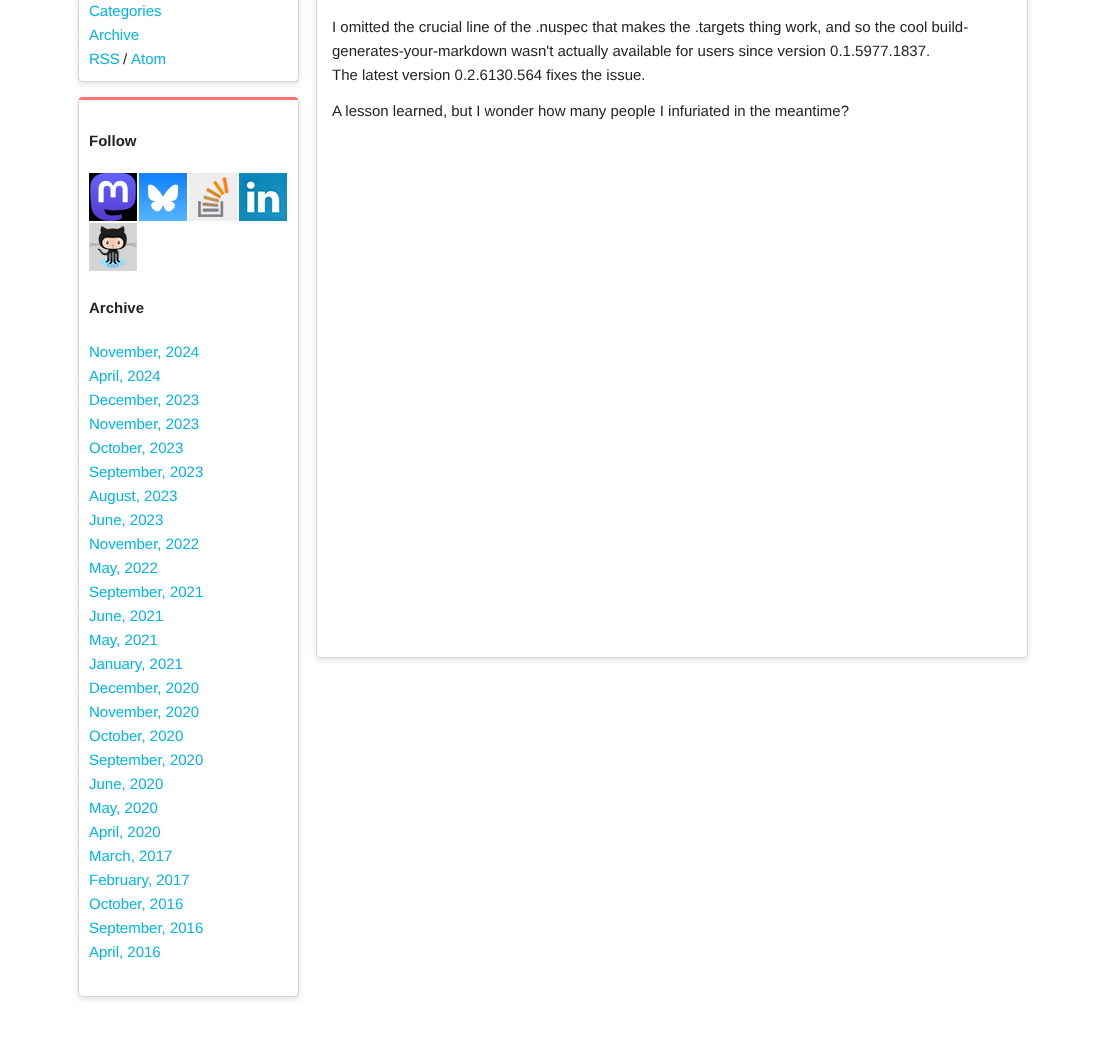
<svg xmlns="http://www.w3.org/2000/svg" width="1106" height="1039">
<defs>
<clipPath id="clip1"><path d="M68 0h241v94h-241zm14-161h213c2 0 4 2 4 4v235c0 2-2 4-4 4h-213c-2 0-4-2-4-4v-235c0-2 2-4 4-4z" clip-rule="evenodd"/></clipPath>
<clipPath id="clip2"><path d="M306 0h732v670h-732zm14-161h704c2 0 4 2 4 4v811c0 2-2 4-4 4h-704c-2 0-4-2-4-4v-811c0-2 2-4 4-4z" clip-rule="evenodd"/></clipPath>
<clipPath id="clip3"><path d="M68 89h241v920h-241zm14 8h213c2 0 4 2 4 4v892c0 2-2 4-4 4h-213c-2 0-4-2-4-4v-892c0-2 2-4 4-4z" clip-rule="evenodd"/></clipPath>
</defs>
<rect width="100%" height="100%" fill="#fff"/>
<g clip-path="url(#clip1)">
<rect x="78" y="-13" width="221" height="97" rx="4" fill="#64646433" filter="blur(3px)"/>
</g>
<path d="M299 78v-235l-1-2v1v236l-1 2l1 1z" fill="#d4d4d4"/>
<path d="M82 82h213c1 0 2 0 3-1l-1-1l-2 1h-213l-2-1l-1 1z" fill="#d4d4d4"/>
<path d="M78-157v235c0 1 0 2 1 3l1-1l-1-2v-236v-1z" fill="#d4d4d4"/>
<text x="89" y="16" style="font-family:Liberation Sans;font-size:15px;fill:#00b6e3">Categories</text>
<text x="89" y="40" style="font-family:Liberation Sans;font-size:15px;fill:#00b6e3">Archive</text>
<text x="89" y="64" style="font-family:Liberation Sans;font-size:15px;fill:#00b6e3">RSS</text>
<text x="123" y="64" style="font-family:Liberation Sans;font-size:15px;fill:#222">/</text>
<text x="131" y="64" style="font-family:Liberation Sans;font-size:15px;fill:#00b6e3">Atom</text>
<g clip-path="url(#clip2)">
<rect x="316" y="-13" width="712" height="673" rx="4" fill="#64646433" filter="blur(3px)"/>
</g>
<path d="M1028 654v-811l-1-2v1v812l-1 2l1 1z" fill="#d4d4d4"/>
<path d="M320 658h704l3-1l-1-1l-2 1h-704l-2-1l-1 1z" fill="#d4d4d4"/>
<path d="M316-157v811l1 3l1-1l-1-2v-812v-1z" fill="#d4d4d4"/>
<text x="332" y="32" style="font-family:Liberation Sans;font-size:15px;fill:#222">I omitted the crucial line of the .nuspec that makes the .targets thing work, and so the cool build-</text>
<text x="332" y="56" style="font-family:Liberation Sans;font-size:15px;fill:#222">generates-your-markdown wasn't actually available for users since version 0.1.5977.1837.</text>
<text x="332" y="80" style="font-family:Liberation Sans;font-size:15px;fill:#222">The latest version 0.2.6130.564 fixes the issue.</text>
<text x="332" y="116" style="font-family:Liberation Sans;font-size:15px;fill:#222">A lesson learned, but I wonder how many people I infuriated in the meantime?</text>
<g clip-path="url(#clip3)">
<rect x="78" y="99" width="221" height="900" rx="4" fill="#64646433" filter="blur(3px)"/>
</g>
<path d="M82 97c-1 0-3 1-3 2v1h3h213h3v-1c0-1-2-2-3-2z" fill="#ff7575"/>
<path d="M299 993v-892l-1-2v1v893l-1 2l1 1z" fill="#d4d4d4"/>
<path d="M82 997h213c1 0 2-1 3-1l-1-1l-2 1h-213l-2-1l-1 1z" fill="#d4d4d4"/>
<path d="M78 101v892l1 3l1-1l-1-2v-893v-1z" fill="#d4d4d4"/>
<text x="89" y="146" style="font-family:Liberation Sans;font-size:15px;font-weight:bold;fill:#222">Follow</text>
<image x="89" y="173" width="48" height="48" href="media/1.png"/>
<image x="139" y="173" width="48" height="48" href="media/2.png"/>
<image x="189" y="173" width="48" height="48" href="media/3.png"/>
<image x="239" y="173" width="48" height="48" href="media/4.png"/>
<image x="89" y="223" width="48" height="48" href="media/5.png"/>
<text x="89" y="313" style="font-family:Liberation Sans;font-size:15px;font-weight:bold;fill:#222">Archive</text>
<text x="89" y="357" style="font-family:Liberation Sans;font-size:15px;fill:#00b6e3">November, 2024</text>
<text x="89" y="381" style="font-family:Liberation Sans;font-size:15px;fill:#00b6e3">April, 2024</text>
<text x="89" y="405" style="font-family:Liberation Sans;font-size:15px;fill:#00b6e3">December, 2023</text>
<text x="89" y="429" style="font-family:Liberation Sans;font-size:15px;fill:#00b6e3">November, 2023</text>
<text x="89" y="453" style="font-family:Liberation Sans;font-size:15px;fill:#00b6e3">October, 2023</text>
<text x="89" y="477" style="font-family:Liberation Sans;font-size:15px;fill:#00b6e3">September, 2023</text>
<text x="89" y="501" style="font-family:Liberation Sans;font-size:15px;fill:#00b6e3">August, 2023</text>
<text x="89" y="525" style="font-family:Liberation Sans;font-size:15px;fill:#00b6e3">June, 2023</text>
<text x="89" y="549" style="font-family:Liberation Sans;font-size:15px;fill:#00b6e3">November, 2022</text>
<text x="89" y="573" style="font-family:Liberation Sans;font-size:15px;fill:#00b6e3">May, 2022</text>
<text x="89" y="597" style="font-family:Liberation Sans;font-size:15px;fill:#00b6e3">September, 2021</text>
<text x="89" y="621" style="font-family:Liberation Sans;font-size:15px;fill:#00b6e3">June, 2021</text>
<text x="89" y="645" style="font-family:Liberation Sans;font-size:15px;fill:#00b6e3">May, 2021</text>
<text x="89" y="669" style="font-family:Liberation Sans;font-size:15px;fill:#00b6e3">January, 2021</text>
<text x="89" y="693" style="font-family:Liberation Sans;font-size:15px;fill:#00b6e3">December, 2020</text>
<text x="89" y="717" style="font-family:Liberation Sans;font-size:15px;fill:#00b6e3">November, 2020</text>
<text x="89" y="741" style="font-family:Liberation Sans;font-size:15px;fill:#00b6e3">October, 2020</text>
<text x="89" y="765" style="font-family:Liberation Sans;font-size:15px;fill:#00b6e3">September, 2020</text>
<text x="89" y="789" style="font-family:Liberation Sans;font-size:15px;fill:#00b6e3">June, 2020</text>
<text x="89" y="813" style="font-family:Liberation Sans;font-size:15px;fill:#00b6e3">May, 2020</text>
<text x="89" y="837" style="font-family:Liberation Sans;font-size:15px;fill:#00b6e3">April, 2020</text>
<text x="89" y="861" style="font-family:Liberation Sans;font-size:15px;fill:#00b6e3">March, 2017</text>
<text x="89" y="885" style="font-family:Liberation Sans;font-size:15px;fill:#00b6e3">February, 2017</text>
<text x="89" y="909" style="font-family:Liberation Sans;font-size:15px;fill:#00b6e3">October, 2016</text>
<text x="89" y="933" style="font-family:Liberation Sans;font-size:15px;fill:#00b6e3">September, 2016</text>
<text x="89" y="957" style="font-family:Liberation Sans;font-size:15px;fill:#00b6e3">April, 2016</text>
</svg>
